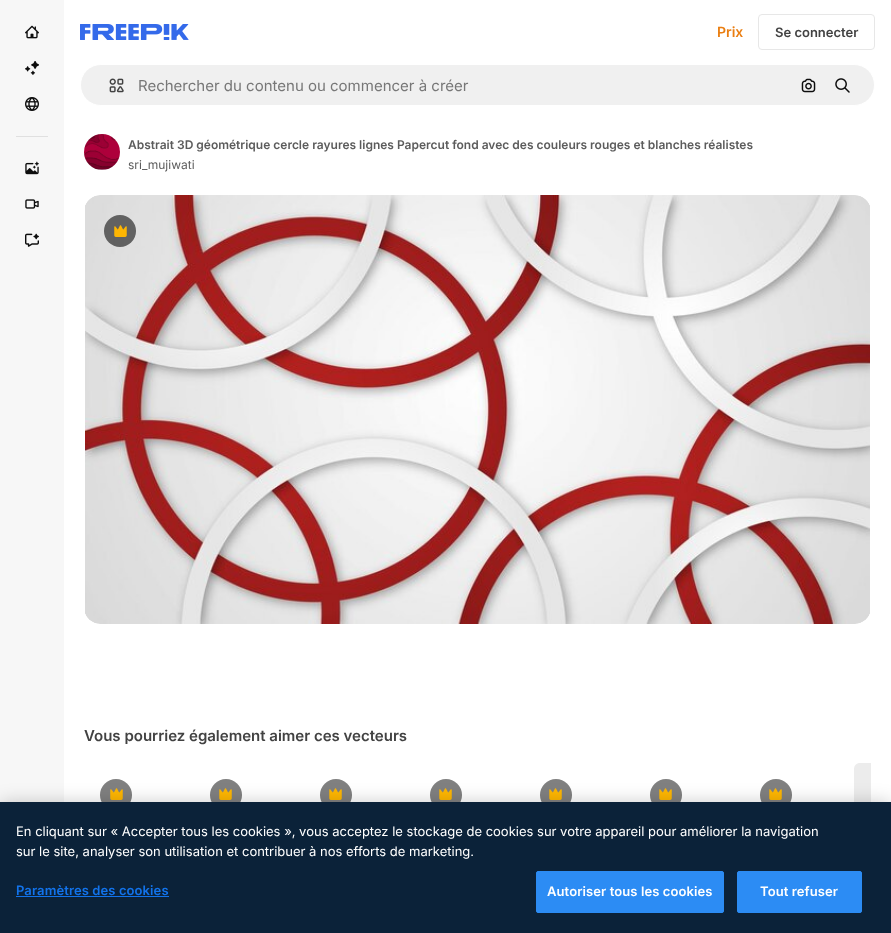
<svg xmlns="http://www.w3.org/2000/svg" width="891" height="933">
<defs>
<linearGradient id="g1" gradientUnits="userSpaceOnUse" x1="845" y1="787" x2="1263" y2="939"><stop offset="0.08" stop-color="#ececec"/><stop offset="0.18" stop-color="#f5f5f5"/><stop offset="0.33" stop-color="#ececec"/></linearGradient>
</defs>
<rect width="100%" height="100%" fill="#fff"/>
<rect width="64" height="802" fill="#f7f7f7"/>
<image x="25" y="25" width="14" height="14" href="media/1.png"/>
<image x="25" y="61" width="14" height="14" href="media/2.png"/>
<image x="25" y="97" width="14" height="14" href="media/3.png"/>
<rect x="16" y="136" width="32" height="1" fill="#e0e0e0"/>
<image x="25" y="161" width="14" height="14" href="media/4.png"/>
<image x="25" y="199" width="14" height="10" href="media/5.png"/>
<image x="25" y="233" width="14" height="14" href="media/6.png"/>
<image x="80" y="24" width="109" height="16" href="media/7.png"/>
<text x="717" y="37" style="font-family:Inter;font-size:14px;font-weight:600;fill:#ea7e11">Prix</text>
<rect x="758.5" y="14.5" width="116" height="35" rx="3.5" fill="none" stroke="#e7e7e7"/>
<text x="775" y="37" style="font-family:Inter;font-size:13px;font-weight:600;fill:#424242">Se connecter</text>
<rect x="80.5" y="64.5" width="794" height="41" rx="20.5" fill="#f0f0f0" stroke="#fff"/>
<image x="109" y="78" width="15" height="15" href="media/8.png"/>
<text x="138" y="91" style="font-family:Inter;font-size:15px;fill:#777">Rechercher du contenu ou commencer à créer</text>
<image x="801" y="78" width="15" height="15" href="media/9.png"/>
<image x="835" y="78" width="15" height="15" href="media/10.png"/>
<image x="84" y="134" width="36" height="36" href="media/11.png"/>
<text x="128" y="149" style="font-family:Inter;font-size:12px;font-weight:600;fill:#5c5c5c">Abstrait 3D géométrique cercle rayures lignes Papercut fond avec des couleurs rouges et blanches réalistes</text>
<text x="128" y="169" style="font-family:Inter;font-size:12px;fill:#5c5c5c">sri_mujiwati</text>
<image x="85" y="195" width="785" height="429" href="media/12.png"/>
<circle cx="120" cy="231" r="16" fill="#0d0d0d99"/>
<image x="114" y="225" width="13" height="12" href="media/13.png"/>
<text x="84" y="741" style="font-family:Inter;font-size:15px;font-weight:600;fill:#424242">Vous pourriez également aimer ces vecteurs</text>
<circle cx="116" cy="795" r="16" fill="#808080"/>
<image x="110" y="788" width="13" height="12" href="media/14.png"/>
<circle cx="226" cy="795" r="16" fill="#808080"/>
<image x="219" y="788" width="13" height="12" href="media/14.png"/>
<circle cx="336" cy="795" r="16" fill="#808080"/>
<image x="329" y="788" width="13" height="12" href="media/14.png"/>
<circle cx="446" cy="795" r="16" fill="#808080"/>
<image x="439" y="788" width="13" height="12" href="media/14.png"/>
<circle cx="556" cy="795" r="16" fill="#808080"/>
<image x="549" y="788" width="13" height="12" href="media/14.png"/>
<circle cx="666" cy="795" r="16" fill="#808080"/>
<image x="659" y="788" width="13" height="12" href="media/14.png"/>
<circle cx="776" cy="795" r="16" fill="#808080"/>
<image x="769" y="788" width="13" height="12" href="media/14.png"/>
<path d="M860 763h11v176h-11c-3.5 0-6-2.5-6-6v-164c0-3.5 2.5-6 6-6z" fill="url(#g1)"/>
<rect y="802" width="891" height="131" fill="#00000033" filter="blur(9px)"/>
<rect y="802" width="891" height="131" fill="#0b2239"/>
<text x="16" y="836" style="font-family:Inter;font-size:13px;fill:#fff">En cliquant sur « Accepter tous les cookies », vous acceptez le stockage de cookies sur votre appareil pour améliorer la navigation</text>
<text x="16" y="856" style="font-family:Inter;font-size:13px;fill:#fff">sur le site, analyser son utilisation et contribuer à nos efforts de marketing.</text>
<text x="16" y="895" style="font-family:Inter;font-size:13px;font-weight:600;letter-spacing:0.1px;fill:#1273eb">Paramètres des cookies</text>
<rect x="16" y="896" width="153" height="1" fill="#1273eb"/>
<rect x="536.5" y="871.5" width="187" height="41" rx="1.5" fill="#2c8cf4" stroke="#2c8cf4"/>
<text x="547" y="896" style="font-family:Inter;font-size:13px;font-weight:600;letter-spacing:0.1px;fill:#fff">Autoriser tous les cookies</text>
<rect x="737.5" y="871.5" width="124" height="41" rx="1.5" fill="#2c8cf4" stroke="#2c8cf4"/>
<text x="760" y="896" style="font-family:Inter;font-size:13px;font-weight:600;letter-spacing:0.1px;fill:#fff">Tout refuser</text>
</svg>
